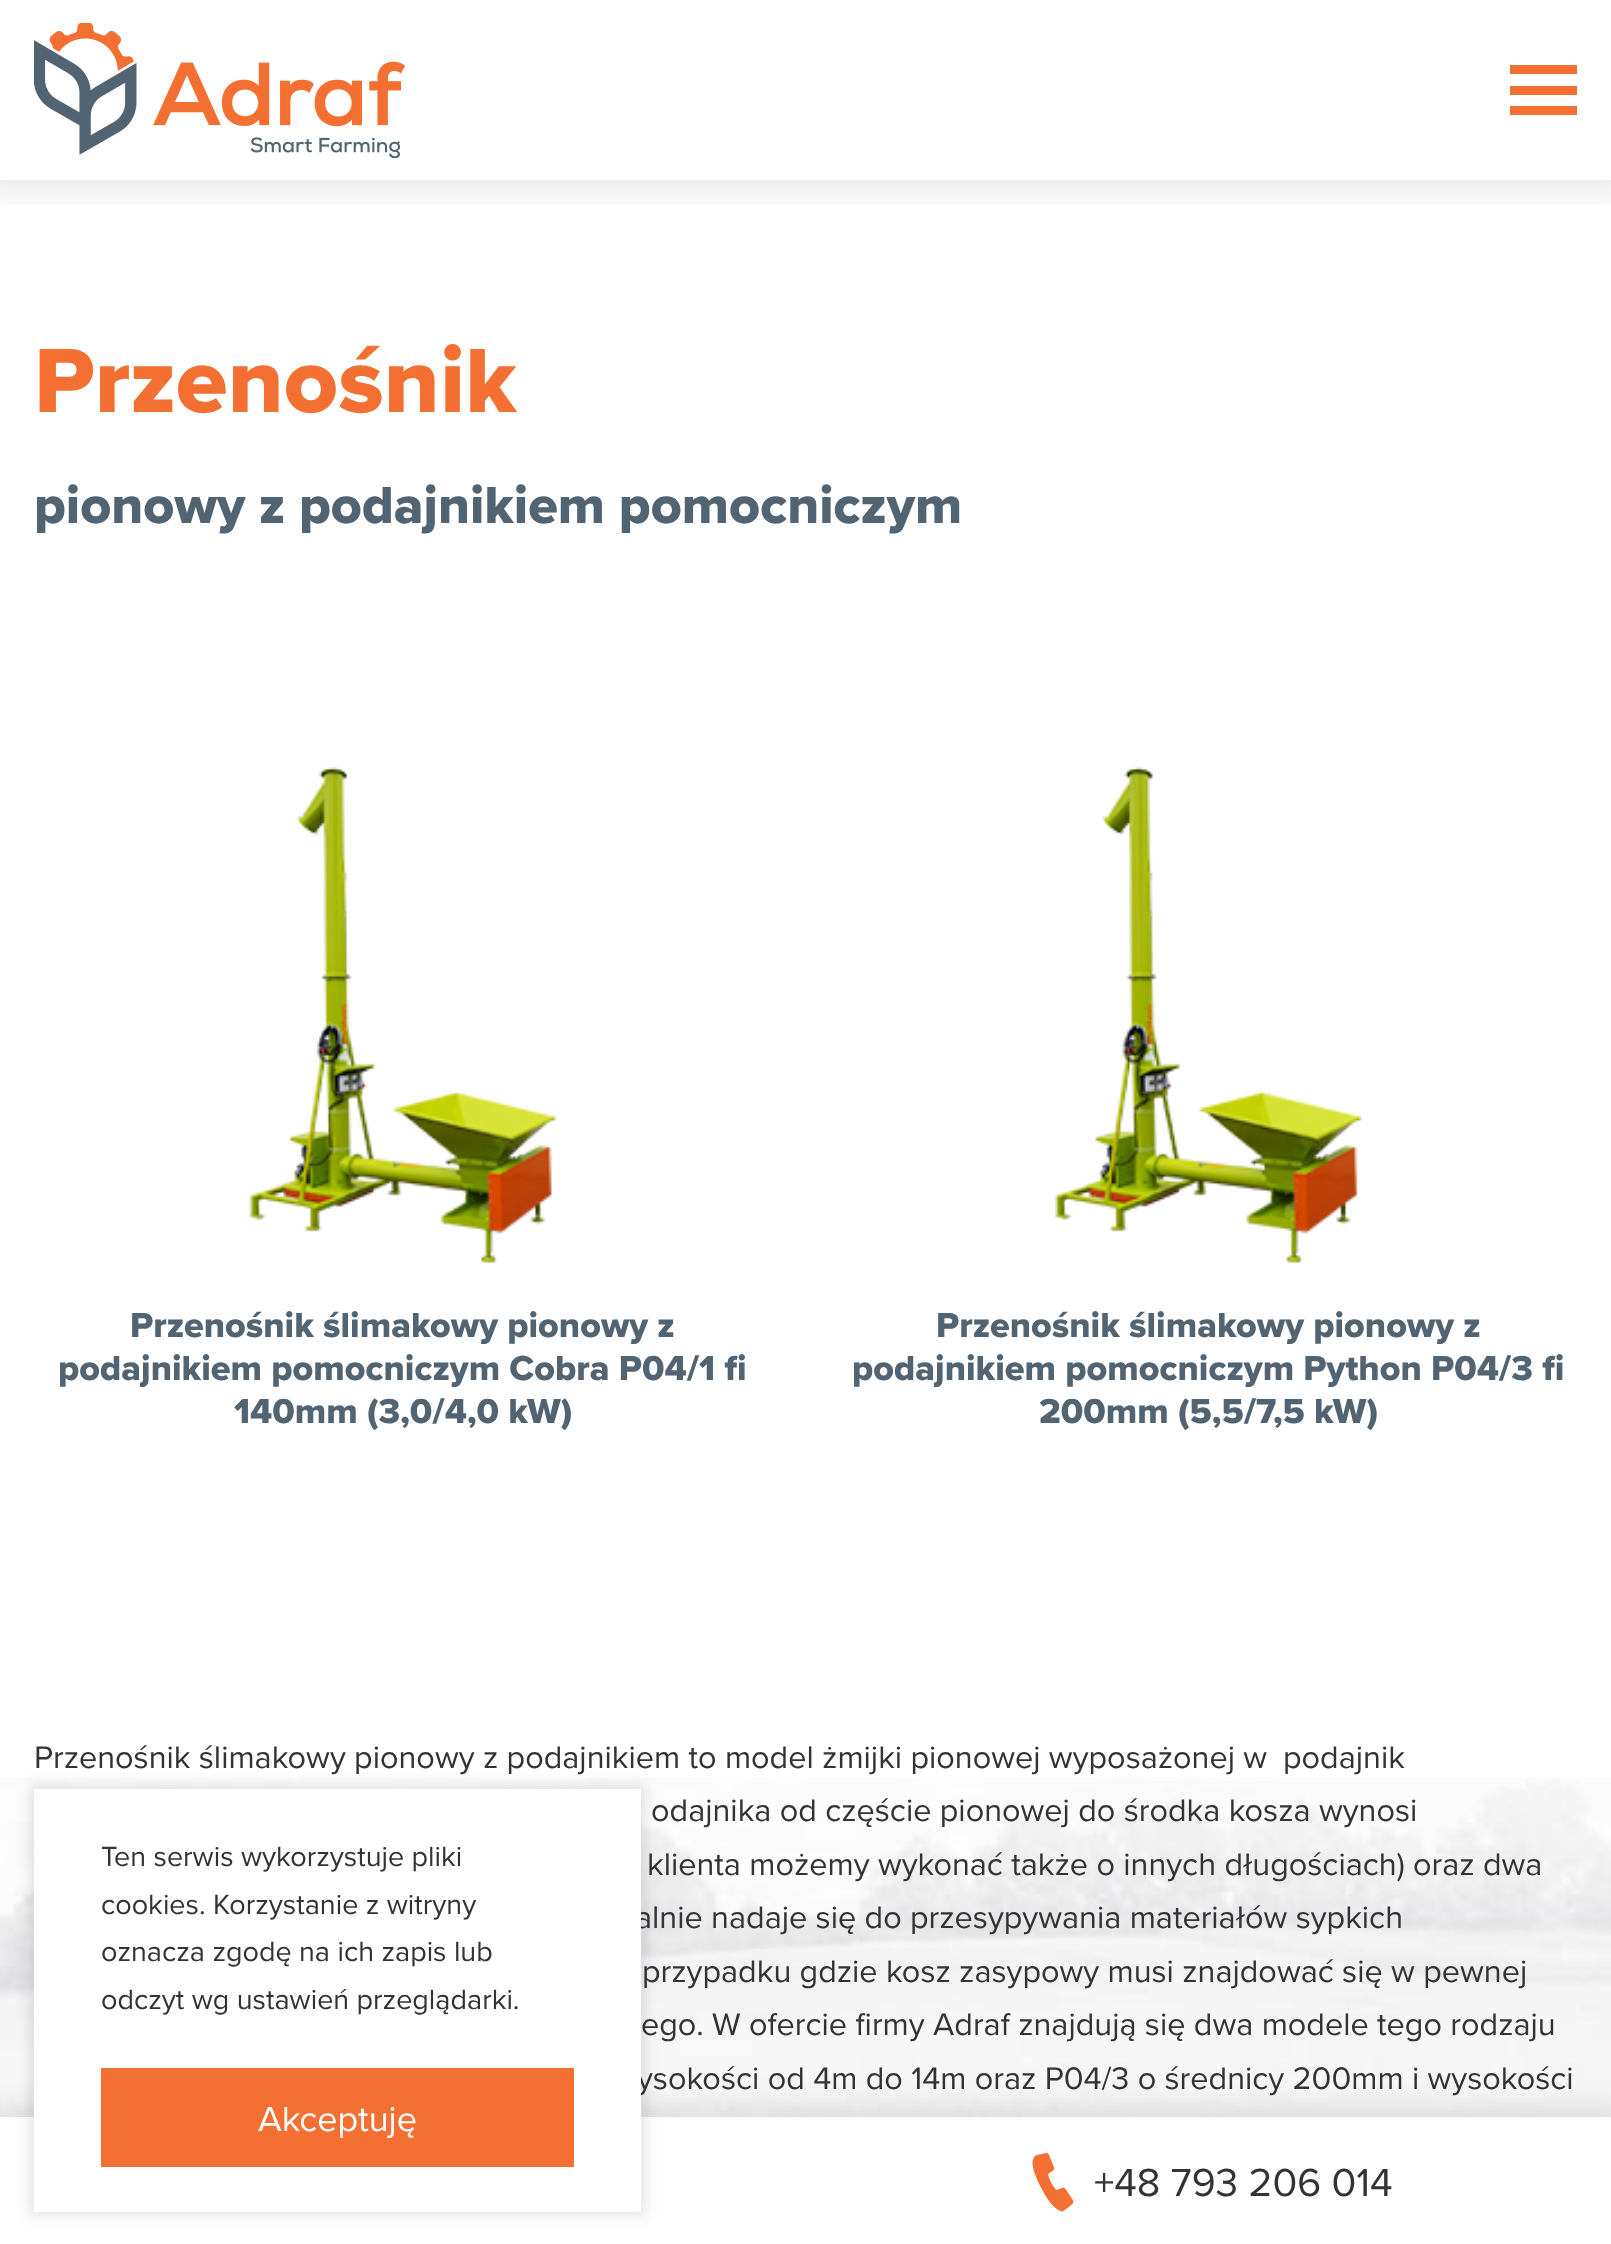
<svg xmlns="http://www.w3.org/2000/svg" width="1611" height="2244">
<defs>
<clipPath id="clip1"><rect x="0" y="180" width="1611" height="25"/></clipPath>
</defs>
<rect width="100%" height="100%" fill="#fff"/>
<image x="0" y="1777" width="1611" height="340" href="media/1.png"/>
<text x="34" y="412" style="font-family:Proxima Nova;font-size:94.5px;font-weight:800;fill:#f37032">Przenośnik</text>
<text x="34" y="523" style="font-family:Proxima Nova;font-size:54px;font-weight:800;fill:#526371">pionowy z podajnikiem pomocniczym</text>
<image x="249" y="766" width="308" height="497" href="media/2.png"/>
<text x="130" y="1337" style="font-family:Proxima Nova;font-size:36px;font-weight:800;fill:#526371">Przenośnik ślimakowy pionowy z</text>
<text x="58" y="1380" style="font-family:Proxima Nova;font-size:36px;font-weight:800;fill:#526371">podajnikiem pomocniczym Cobra P04/1 fi</text>
<text x="234" y="1423" style="font-family:Proxima Nova;font-size:36px;font-weight:800;fill:#526371">140mm (3,0/4,0 kW)</text>
<image x="1054" y="766" width="308" height="497" href="media/3.png"/>
<text x="936" y="1337" style="font-family:Proxima Nova;font-size:36px;font-weight:800;fill:#526371">Przenośnik ślimakowy pionowy z</text>
<text x="852" y="1380" style="font-family:Proxima Nova;font-size:36px;font-weight:800;fill:#526371">podajnikiem pomocniczym Python P04/3 fi</text>
<text x="1039" y="1423" style="font-family:Proxima Nova;font-size:36px;font-weight:800;fill:#526371">200mm (5,5/7,5 kW)</text>
<text x="34" y="1768" style="font-family:Proxima Nova;font-size:32.4px;fill:#333">Przenośnik ślimakowy pionowy z podajnikiem to model żmijki pionowej wyposażonej w</text>
<text x="1283" y="1768" style="font-family:Proxima Nova;font-size:32.4px;fill:#333">podajnik</text>
<text x="651" y="1821" style="font-family:Proxima Nova;font-size:32.4px;fill:#333">odajnika od częście pionowej do środka kosza wynosi</text>
<text x="647" y="1875" style="font-family:Proxima Nova;font-size:32.4px;fill:#333">klienta możemy wykonać także o innych długościach) oraz dwa</text>
<text x="635" y="1928" style="font-family:Proxima Nova;font-size:32.4px;fill:#333">alnie nadaje się do przesypywania materiałów sypkich</text>
<text x="642" y="1982" style="font-family:Proxima Nova;font-size:32.4px;fill:#333">przypadku gdzie kosz zasypowy musi znajdować się w pewnej</text>
<text x="641" y="2035" style="font-family:Proxima Nova;font-size:32.4px;fill:#333">ego. W ofercie firmy Adraf znajdują się dwa modele tego rodzaju</text>
<text x="637" y="2089" style="font-family:Proxima Nova;font-size:32.4px;fill:#333">ysokości od 4m do 14m oraz P04/3 o średnicy 200mm i wysokości</text>
<rect x="-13" y="2104" width="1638" height="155" fill="#3333331a" filter="blur(13.5px)"/>
<rect y="2117" width="1611" height="127" fill="#fff"/>
<rect x="29" y="1784" width="617" height="432" fill="#0000001a" filter="blur(7px)"/>
<rect x="34" y="1789" width="607" height="423" fill="#fff"/>
<text x="101" y="1866" style="font-family:Proxima Nova;font-size:28.75px;fill:#333">Ten serwis wykorzystuje pliki</text>
<text x="101" y="1914" style="font-family:Proxima Nova;font-size:28.75px;fill:#333">cookies. Korzystanie z witryny</text>
<text x="101" y="1961" style="font-family:Proxima Nova;font-size:28.75px;fill:#333">oznacza zgodę na ich zapis lub</text>
<text x="101" y="2009" style="font-family:Proxima Nova;font-size:28.75px;fill:#333">odczyt wg ustawień przeglądarki.</text>
<rect x="101" y="2068" width="473" height="99" fill="#f37032"/>
<text x="258" y="2131" style="font-family:Proxima Nova;font-size:36px;fill:#fff">Akceptuję</text>
<g clip-path="url(#clip1)">
<rect x="-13" y="-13" width="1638" height="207" fill="#3333331a" filter="blur(13.5px)"/>
</g>
<image x="34" y="23" width="371" height="135" href="media/4.png"/>
<rect x="1510" y="65" width="67" height="9" fill="#f37032"/>
<rect x="1510" y="86" width="67" height="9" fill="#f37032"/>
<rect x="1510" y="106" width="67" height="9" fill="#f37032"/>
<image x="1032" y="2153" width="42" height="59" href="media/5.png"/>
<text x="1094" y="2196" style="font-family:Proxima Nova;font-size:40.5px;fill:#333">+48 793 206 014</text>
</svg>
